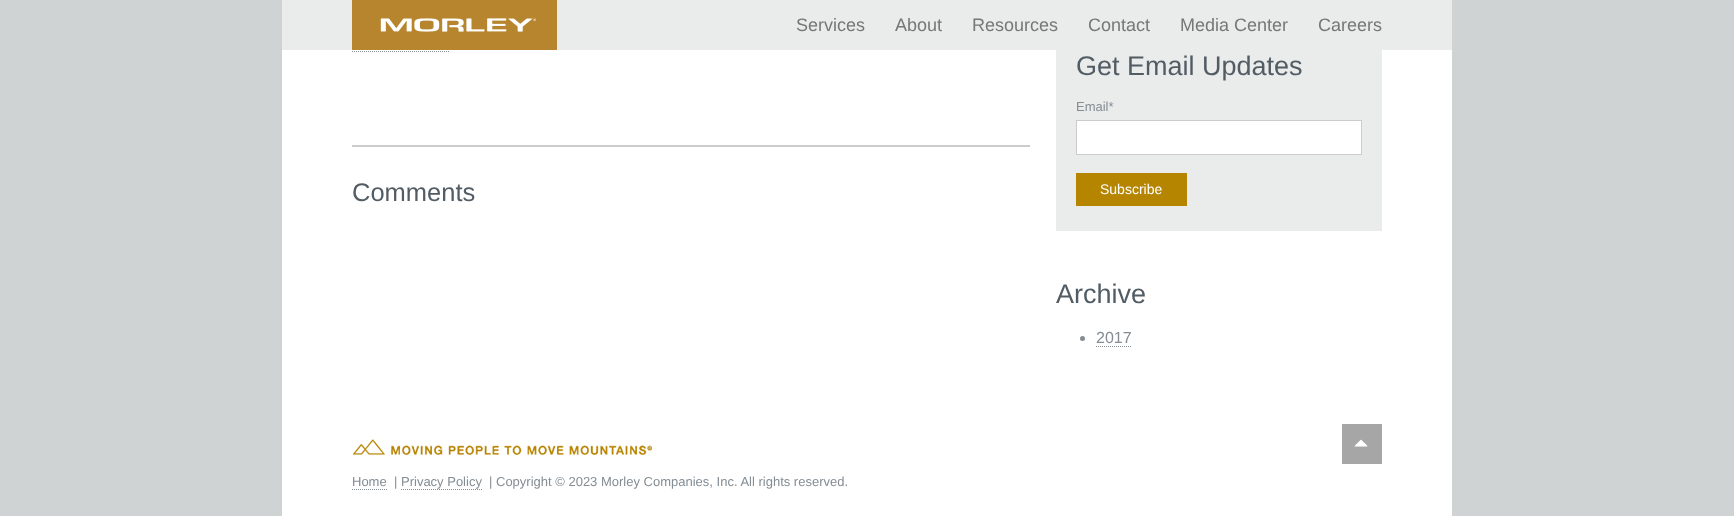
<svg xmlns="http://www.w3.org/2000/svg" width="1734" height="516">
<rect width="100%" height="100%" fill="#d0d3d4"/>
<rect x="282" width="1170" height="50" fill="#eaebeb"/>
<image x="352" y="0" width="205" height="50" href="media/1.png"/>
<text x="796" y="31" style="font-family:Liberation Sans;font-size:18px;fill:#777">Services</text>
<text x="895" y="31" style="font-family:Liberation Sans;font-size:18px;fill:#777">About</text>
<text x="972" y="31" style="font-family:Liberation Sans;font-size:18px;fill:#777">Resources</text>
<text x="1088" y="31" style="font-family:Liberation Sans;font-size:18px;fill:#777">Contact</text>
<text x="1180" y="31" style="font-family:Liberation Sans;font-size:18px;fill:#777">Media Center</text>
<text x="1318" y="31" style="font-family:Liberation Sans;font-size:18px;fill:#777">Careers</text>
<rect x="282" y="50" width="1170" height="466" fill="#fff"/>
<path d="M352 51.5h97" fill="none" stroke="#848d94" stroke-dasharray="1 1"/>
<rect x="352" y="145" width="678" height="2" fill="#ccc"/>
<text x="352" y="201" style="font-family:Liberation Sans;font-size:25.5px;fill:#525c64">Comments</text>
<rect x="1056" y="50" width="326" height="181" fill="#eaebeb"/>
<text x="1076" y="75" style="font-family:Liberation Sans;font-size:27px;fill:#525c64">Get Email Updates</text>
<text x="1076" y="111" style="font-family:Liberation Sans;font-size:13px;fill:#848d94">Email*</text>
<rect x="1076.5" y="120.5" width="285" height="34" fill="#fff" stroke="#ccc"/>
<rect x="1076" y="173" width="111" height="33" fill="#b58500"/>
<text x="1100" y="194" style="font-family:Liberation Sans;font-size:14px;fill:#fff">Subscribe</text>
<text x="1056" y="303" style="font-family:Liberation Sans;font-size:27px;fill:#525c64">Archive</text>
<circle cx="1082.5" cy="338.5" r="2.5" fill="#848d94"/>
<text x="1096" y="343" style="font-family:Liberation Sans;font-size:16px;fill:#848d94">2017</text>
<path d="M1096 346.5h36" fill="none" stroke="#848d94" stroke-dasharray="1 1"/>
<image x="352" y="439" width="300" height="16" href="media/2.png"/>
<rect x="1342" y="424" width="40" height="40" fill="#a6a6a6"/>
<image x="1354" y="439" width="14" height="8" href="media/3.png"/>
<text x="352" y="486" style="font-family:Liberation Sans;font-size:13px;fill:#848d94">Home</text>
<path d="M352 489.5h35" fill="none" stroke="#848d94" stroke-dasharray="1 1"/>
<text x="394" y="486" style="font-family:Liberation Sans;font-size:13px;fill:#848d94">| Privacy Policy</text>
<path d="M401 489.5h81" fill="none" stroke="#848d94" stroke-dasharray="1 1"/>
<text x="489" y="486" style="font-family:Liberation Sans;font-size:13px;fill:#848d94">| Copyright © 2023 Morley Companies, Inc. All rights reserved.</text>
</svg>
